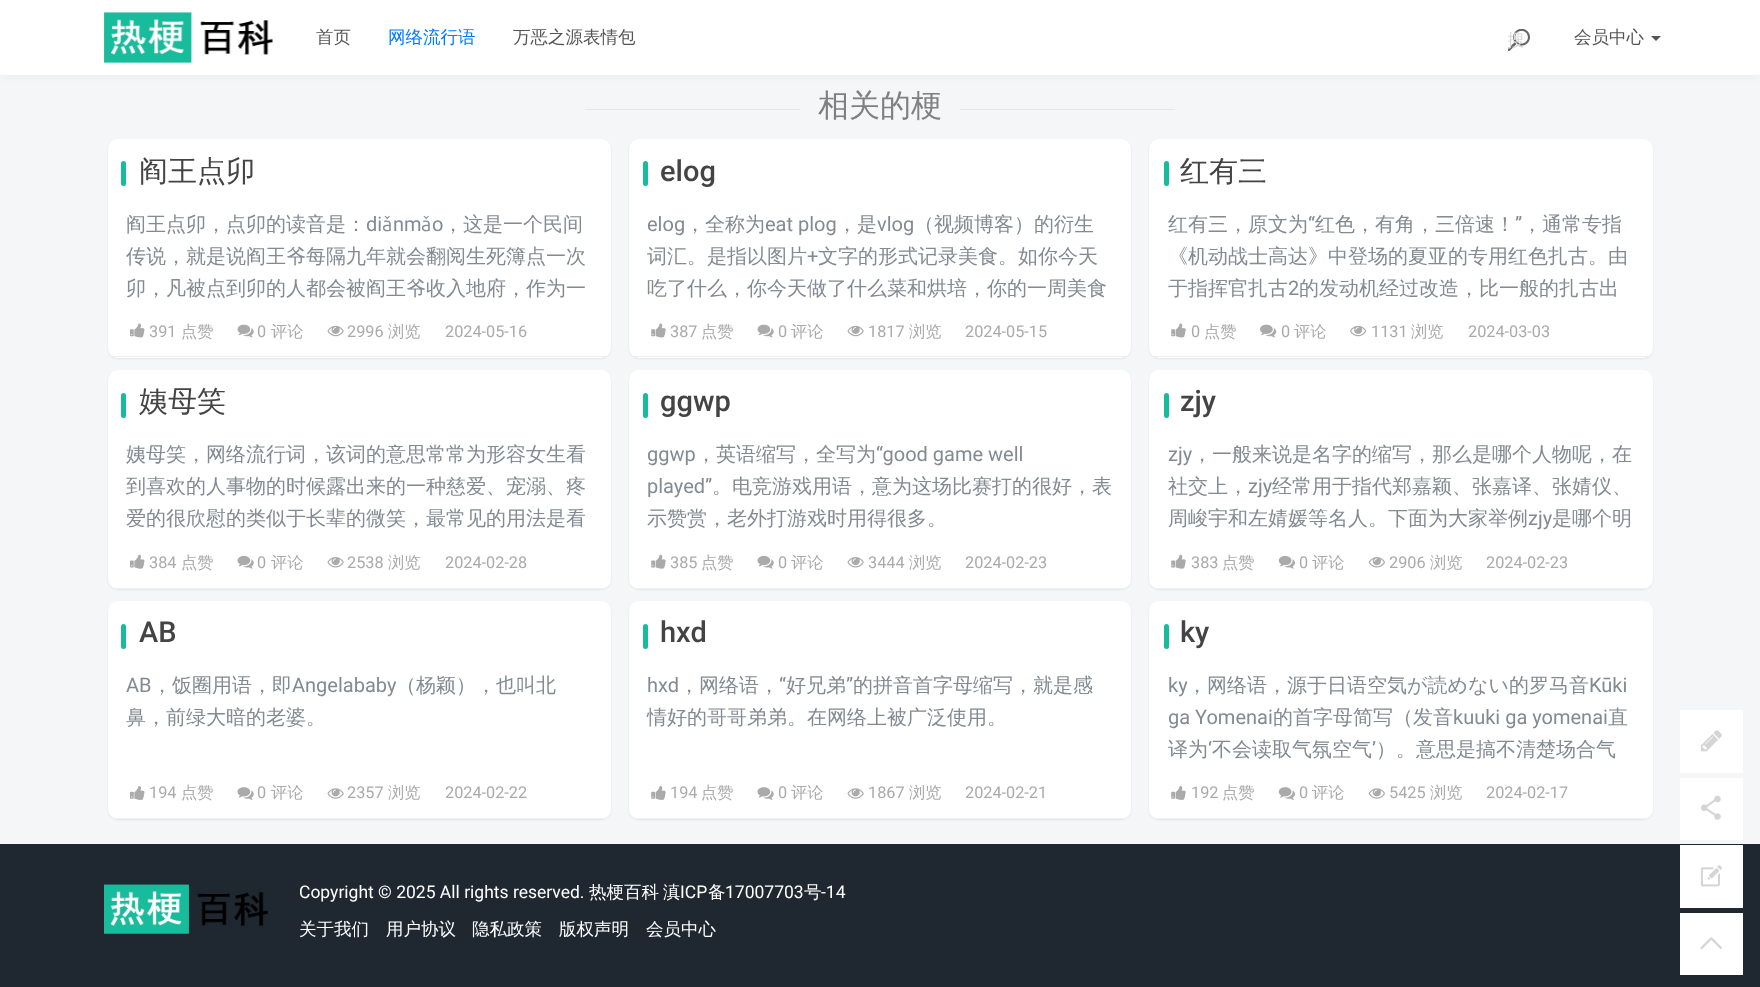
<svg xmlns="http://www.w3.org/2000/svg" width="1760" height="987">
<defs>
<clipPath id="clip1"><rect x="1508" y="30" width="16" height="23"/></clipPath>
</defs>
<rect width="100%" height="100%" fill="#f4f6f8"/>
<rect y="1" width="1760" height="75" fill="#0000000d" filter="blur(5px)"/>
<rect width="1760" height="75" fill="#fff"/>
<image x="104" y="12" width="169" height="51" href="media/1.png"/>
<text x="316" y="43" style="font-family:WenQuanYi Zen Hei;font-size:17.5px;font-weight:500;fill:#555">首页</text>
<text x="388" y="43" style="font-family:WenQuanYi Zen Hei;font-size:17.5px;font-weight:500;fill:#007bff">网络流行语</text>
<text x="513" y="43" style="font-family:WenQuanYi Zen Hei;font-size:17.5px;font-weight:500;fill:#555">万恶之源表情包</text>
<image x="1508" y="29" width="22" height="22" href="media/2.png"/>
<g clip-path="url(#clip1)">
<text x="1507" y="46" style="font-family:WenQuanYi Zen Hei;font-size:17.5px;font-weight:500;fill:#d8d8d8">搜</text>
</g>
<text x="1574" y="43" style="font-family:WenQuanYi Zen Hei;font-size:17.5px;font-weight:500;fill:#555">会员中心</text>
<path d="M1651 36h10l-5 5z" fill="#555"/>
<rect x="585" y="109" width="590" height="1" fill="#e5e5e5"/>
<rect x="800" y="109" width="160" height="1" fill="#f4f6f8"/>
<text x="818" y="116" style="font-family:WenQuanYi Zen Hei;font-size:31px;font-weight:500;fill:#808080">相关的梗</text>
<rect x="108" y="140" width="503" height="219" rx="10" fill="#00000012" filter="blur(1px)"/>
<rect x="108" y="139" width="503" height="219" rx="10" fill="#fff"/>
<rect x="113" y="356" width="493" height="1" fill="#efefef"/>
<rect x="121" y="161" width="5" height="25" rx="2.5" fill="#18bc9c"/>
<text x="139" y="181" style="font-family:WenQuanYi Zen Hei;font-size:29px;font-weight:500;fill:#444">阎王点卯</text>
<text x="126" y="231" style="font-family:WenQuanYi Zen Hei;font-size:20px;font-weight:500;fill:#828a92">阎王点卯，点卯的读音是：</text>
<text x="366" y="231" style="font-family:Roboto;font-size:20px;fill:#828a92">di</text>
<text x="382" y="231" style="font-family:Ubuntu;font-size:20px;fill:#828a92">ǎ</text>
<text x="393" y="231" style="font-family:Roboto;font-size:20px;fill:#828a92">nm</text>
<text x="421" y="231" style="font-family:Ubuntu;font-size:20px;fill:#828a92">ǎ</text>
<text x="432" y="231" style="font-family:Roboto;font-size:20px;fill:#828a92">o</text>
<text x="443" y="231" style="font-family:WenQuanYi Zen Hei;font-size:20px;font-weight:500;fill:#828a92">，这是一个民间</text>
<text x="126" y="263" style="font-family:WenQuanYi Zen Hei;font-size:20px;font-weight:500;fill:#828a92">传说，就是说阎王爷每隔九年就会翻阅生死簿点一次</text>
<text x="126" y="295" style="font-family:WenQuanYi Zen Hei;font-size:20px;font-weight:500;fill:#828a92">卯，凡被点到卯的人都会被阎王爷收入地府，作为一</text>
<image x="130" y="323" width="15" height="15" href="media/3.png"/>
<text x="149" y="337" style="font-family:Roboto;font-size:16.25px;fill:#aaa">391</text>
<text x="181" y="337" style="font-family:WenQuanYi Zen Hei;font-size:16.25px;font-weight:500;fill:#aaa">点赞</text>
<image x="237" y="324" width="17" height="14" href="media/4.png"/>
<text x="257" y="337" style="font-family:Roboto;font-size:16.25px;fill:#aaa">0</text>
<text x="271" y="337" style="font-family:WenQuanYi Zen Hei;font-size:16.25px;font-weight:500;fill:#aaa">评论</text>
<image x="327" y="325" width="17" height="12" href="media/5.png"/>
<text x="347" y="337" style="font-family:Roboto;font-size:16.25px;fill:#aaa">2996</text>
<text x="388" y="337" style="font-family:WenQuanYi Zen Hei;font-size:16.25px;font-weight:500;fill:#aaa">浏览</text>
<text x="445" y="337" style="font-family:Roboto;font-size:16.25px;fill:#aaa">2024-05-16</text>
<rect x="629" y="140" width="502" height="219" rx="10" fill="#00000012" filter="blur(1px)"/>
<rect x="629" y="139" width="502" height="219" rx="10" fill="#fff"/>
<rect x="634" y="356" width="492" height="1" fill="#efefef"/>
<rect x="643" y="161" width="5" height="25" rx="2.5" fill="#18bc9c"/>
<text x="660" y="181" style="font-family:Roboto;font-size:29px;font-weight:500;fill:#444">elog</text>
<text x="647" y="231" style="font-family:Roboto;font-size:20px;fill:#828a92">elog</text>
<text x="685" y="231" style="font-family:WenQuanYi Zen Hei;font-size:20px;font-weight:500;fill:#828a92">，全称为</text>
<text x="765" y="231" style="font-family:Roboto;font-size:20px;fill:#828a92">eat plog</text>
<text x="837" y="231" style="font-family:WenQuanYi Zen Hei;font-size:20px;font-weight:500;fill:#828a92">，是</text>
<text x="877" y="231" style="font-family:Roboto;font-size:20px;fill:#828a92">vlog</text>
<text x="914" y="231" style="font-family:WenQuanYi Zen Hei;font-size:20px;font-weight:500;fill:#828a92">（视频博客）的衍生</text>
<text x="647" y="263" style="font-family:WenQuanYi Zen Hei;font-size:20px;font-weight:500;fill:#828a92">词汇。是指以图片</text>
<text x="807" y="263" style="font-family:Roboto;font-size:20px;fill:#828a92">+</text>
<text x="818" y="263" style="font-family:WenQuanYi Zen Hei;font-size:20px;font-weight:500;fill:#828a92">文字的形式记录美食。如你今天</text>
<text x="647" y="295" style="font-family:WenQuanYi Zen Hei;font-size:20px;font-weight:500;fill:#828a92">吃了什么，你今天做了什么菜和烘培，你的一周美食</text>
<image x="651" y="323" width="15" height="15" href="media/6.png"/>
<text x="670" y="337" style="font-family:Roboto;font-size:16.25px;fill:#aaa">387</text>
<text x="701" y="337" style="font-family:WenQuanYi Zen Hei;font-size:16.25px;font-weight:500;fill:#aaa">点赞</text>
<image x="757" y="324" width="17" height="14" href="media/4.png"/>
<text x="778" y="337" style="font-family:Roboto;font-size:16.25px;fill:#aaa">0</text>
<text x="791" y="337" style="font-family:WenQuanYi Zen Hei;font-size:16.25px;font-weight:500;fill:#aaa">评论</text>
<image x="847" y="325" width="17" height="12" href="media/5.png"/>
<text x="868" y="337" style="font-family:Roboto;font-size:16.25px;fill:#aaa">1817</text>
<text x="909" y="337" style="font-family:WenQuanYi Zen Hei;font-size:16.25px;font-weight:500;fill:#aaa">浏览</text>
<text x="965" y="337" style="font-family:Roboto;font-size:16.25px;fill:#aaa">2024-05-15</text>
<rect x="1149" y="140" width="504" height="219" rx="10" fill="#00000012" filter="blur(1px)"/>
<rect x="1149" y="139" width="504" height="219" rx="10" fill="#fff"/>
<rect x="1154" y="356" width="494" height="1" fill="#efefef"/>
<rect x="1164" y="161" width="5" height="25" rx="2.5" fill="#18bc9c"/>
<text x="1180" y="181" style="font-family:WenQuanYi Zen Hei;font-size:29px;font-weight:500;fill:#444">红有三</text>
<text x="1168" y="231" style="font-family:WenQuanYi Zen Hei;font-size:20px;font-weight:500;fill:#828a92">红有三，原文为</text>
<text x="1308" y="231" style="font-family:Roboto;font-size:20px;fill:#828a92">“</text>
<text x="1315" y="231" style="font-family:WenQuanYi Zen Hei;font-size:20px;font-weight:500;fill:#828a92">红色，有角，三倍速！</text>
<text x="1515" y="231" style="font-family:Roboto;font-size:20px;fill:#828a92">”</text>
<text x="1522" y="231" style="font-family:WenQuanYi Zen Hei;font-size:20px;font-weight:500;fill:#828a92">，通常专指</text>
<text x="1168" y="263" style="font-family:WenQuanYi Zen Hei;font-size:20px;font-weight:500;fill:#828a92">《机动战士高达》中登场的夏亚的专用红色扎古。由</text>
<text x="1168" y="295" style="font-family:WenQuanYi Zen Hei;font-size:20px;font-weight:500;fill:#828a92">于指挥官扎古</text>
<text x="1288" y="295" style="font-family:Roboto;font-size:20px;fill:#828a92">2</text>
<text x="1299" y="295" style="font-family:WenQuanYi Zen Hei;font-size:20px;font-weight:500;fill:#828a92">的发动机经过改造，比一般的扎古出</text>
<image x="1171" y="323" width="15" height="15" href="media/6.png"/>
<text x="1191" y="337" style="font-family:Roboto;font-size:16.25px;fill:#aaa">0</text>
<text x="1204" y="337" style="font-family:WenQuanYi Zen Hei;font-size:16.25px;font-weight:500;fill:#aaa">点赞</text>
<image x="1260" y="324" width="17" height="14" href="media/7.png"/>
<text x="1281" y="337" style="font-family:Roboto;font-size:16.25px;fill:#aaa">0</text>
<text x="1294" y="337" style="font-family:WenQuanYi Zen Hei;font-size:16.25px;font-weight:500;fill:#aaa">评论</text>
<image x="1350" y="325" width="17" height="12" href="media/8.png"/>
<text x="1371" y="337" style="font-family:Roboto;font-size:16.25px;fill:#aaa">1131</text>
<text x="1411" y="337" style="font-family:WenQuanYi Zen Hei;font-size:16.25px;font-weight:500;fill:#aaa">浏览</text>
<text x="1468" y="337" style="font-family:Roboto;font-size:16.25px;fill:#aaa">2024-03-03</text>
<rect x="108" y="371" width="503" height="219" rx="10" fill="#00000012" filter="blur(1px)"/>
<rect x="108" y="370" width="503" height="219" rx="10" fill="#fff"/>
<rect x="113" y="588" width="493" height="1" fill="#efefef"/>
<rect x="121" y="393" width="5" height="25" rx="2.5" fill="#18bc9c"/>
<text x="139" y="411" style="font-family:WenQuanYi Zen Hei;font-size:29px;font-weight:500;fill:#444">姨母笑</text>
<text x="126" y="461" style="font-family:WenQuanYi Zen Hei;font-size:20px;font-weight:500;fill:#828a92">姨母笑，网络流行词，该词的意思常常为形容女生看</text>
<text x="126" y="493" style="font-family:WenQuanYi Zen Hei;font-size:20px;font-weight:500;fill:#828a92">到喜欢的人事物的时候露出来的一种慈爱、宠溺、疼</text>
<text x="126" y="525" style="font-family:WenQuanYi Zen Hei;font-size:20px;font-weight:500;fill:#828a92">爱的很欣慰的类似于长辈的微笑，最常见的用法是看</text>
<image x="130" y="554" width="15" height="15" href="media/9.png"/>
<text x="149" y="568" style="font-family:Roboto;font-size:16.25px;fill:#aaa">384</text>
<text x="181" y="568" style="font-family:WenQuanYi Zen Hei;font-size:16.25px;font-weight:500;fill:#aaa">点赞</text>
<image x="237" y="555" width="17" height="14" href="media/10.png"/>
<text x="257" y="568" style="font-family:Roboto;font-size:16.25px;fill:#aaa">0</text>
<text x="271" y="568" style="font-family:WenQuanYi Zen Hei;font-size:16.25px;font-weight:500;fill:#aaa">评论</text>
<image x="327" y="557" width="17" height="11" href="media/11.png"/>
<text x="347" y="568" style="font-family:Roboto;font-size:16.25px;fill:#aaa">2538</text>
<text x="388" y="568" style="font-family:WenQuanYi Zen Hei;font-size:16.25px;font-weight:500;fill:#aaa">浏览</text>
<text x="445" y="568" style="font-family:Roboto;font-size:16.25px;fill:#aaa">2024-02-28</text>
<rect x="629" y="371" width="502" height="219" rx="10" fill="#00000012" filter="blur(1px)"/>
<rect x="629" y="370" width="502" height="219" rx="10" fill="#fff"/>
<rect x="634" y="588" width="492" height="1" fill="#efefef"/>
<rect x="643" y="393" width="5" height="25" rx="2.5" fill="#18bc9c"/>
<text x="660" y="411" style="font-family:Roboto;font-size:29px;font-weight:500;fill:#444">ggwp</text>
<text x="647" y="461" style="font-family:Roboto;font-size:20px;fill:#828a92">ggwp</text>
<text x="696" y="461" style="font-family:WenQuanYi Zen Hei;font-size:20px;font-weight:500;fill:#828a92">，英语缩写，全写为</text>
<text x="876" y="461" style="font-family:Roboto;font-size:20px;fill:#828a92">“good game well</text>
<text x="647" y="493" style="font-family:Roboto;font-size:20px;fill:#828a92">played”</text>
<text x="712" y="493" style="font-family:WenQuanYi Zen Hei;font-size:20px;font-weight:500;fill:#828a92">。电竞游戏用语，意为这场比赛打的很好，表</text>
<text x="647" y="525" style="font-family:WenQuanYi Zen Hei;font-size:20px;font-weight:500;fill:#828a92">示赞赏，老外打游戏时用得很多。</text>
<image x="651" y="554" width="15" height="15" href="media/12.png"/>
<text x="670" y="568" style="font-family:Roboto;font-size:16.25px;fill:#aaa">385</text>
<text x="701" y="568" style="font-family:WenQuanYi Zen Hei;font-size:16.25px;font-weight:500;fill:#aaa">点赞</text>
<image x="757" y="555" width="17" height="14" href="media/10.png"/>
<text x="778" y="568" style="font-family:Roboto;font-size:16.25px;fill:#aaa">0</text>
<text x="791" y="568" style="font-family:WenQuanYi Zen Hei;font-size:16.25px;font-weight:500;fill:#aaa">评论</text>
<image x="847" y="557" width="17" height="11" href="media/11.png"/>
<text x="868" y="568" style="font-family:Roboto;font-size:16.25px;fill:#aaa">3444</text>
<text x="909" y="568" style="font-family:WenQuanYi Zen Hei;font-size:16.25px;font-weight:500;fill:#aaa">浏览</text>
<text x="965" y="568" style="font-family:Roboto;font-size:16.25px;fill:#aaa">2024-02-23</text>
<rect x="1149" y="371" width="504" height="219" rx="10" fill="#00000012" filter="blur(1px)"/>
<rect x="1149" y="370" width="504" height="219" rx="10" fill="#fff"/>
<rect x="1154" y="588" width="494" height="1" fill="#efefef"/>
<rect x="1164" y="393" width="5" height="25" rx="2.5" fill="#18bc9c"/>
<text x="1180" y="411" style="font-family:Roboto;font-size:29px;font-weight:500;fill:#444">zjy</text>
<text x="1168" y="461" style="font-family:Roboto;font-size:20px;fill:#828a92">zjy</text>
<text x="1192" y="461" style="font-family:WenQuanYi Zen Hei;font-size:20px;font-weight:500;fill:#828a92">，一般来说是名字的缩写，那么是哪个人物呢，在</text>
<text x="1168" y="493" style="font-family:WenQuanYi Zen Hei;font-size:20px;font-weight:500;fill:#828a92">社交上，</text>
<text x="1248" y="493" style="font-family:Roboto;font-size:20px;fill:#828a92">zjy</text>
<text x="1272" y="493" style="font-family:WenQuanYi Zen Hei;font-size:20px;font-weight:500;fill:#828a92">经常用于指代郑嘉颖、张嘉译、张婧仪、</text>
<text x="1168" y="525" style="font-family:WenQuanYi Zen Hei;font-size:20px;font-weight:500;fill:#828a92">周峻宇和左婧媛等名人。下面为大家举例</text>
<text x="1528" y="525" style="font-family:Roboto;font-size:20px;fill:#828a92">zjy</text>
<text x="1552" y="525" style="font-family:WenQuanYi Zen Hei;font-size:20px;font-weight:500;fill:#828a92">是哪个明</text>
<image x="1171" y="554" width="15" height="15" href="media/12.png"/>
<text x="1191" y="568" style="font-family:Roboto;font-size:16.25px;fill:#aaa">383</text>
<text x="1222" y="568" style="font-family:WenQuanYi Zen Hei;font-size:16.25px;font-weight:500;fill:#aaa">点赞</text>
<image x="1278" y="555" width="17" height="14" href="media/13.png"/>
<text x="1299" y="568" style="font-family:Roboto;font-size:16.25px;fill:#aaa">0</text>
<text x="1312" y="568" style="font-family:WenQuanYi Zen Hei;font-size:16.25px;font-weight:500;fill:#aaa">评论</text>
<image x="1368" y="557" width="17" height="11" href="media/14.png"/>
<text x="1389" y="568" style="font-family:Roboto;font-size:16.25px;fill:#aaa">2906</text>
<text x="1430" y="568" style="font-family:WenQuanYi Zen Hei;font-size:16.25px;font-weight:500;fill:#aaa">浏览</text>
<text x="1486" y="568" style="font-family:Roboto;font-size:16.25px;fill:#aaa">2024-02-23</text>
<rect x="108" y="603" width="503" height="217" rx="10" fill="#00000012" filter="blur(1px)"/>
<rect x="108" y="601" width="503" height="218" rx="10" fill="#fff"/>
<rect x="113" y="818" width="493" height="1" fill="#efefef"/>
<rect x="121" y="624" width="5" height="25" rx="2.5" fill="#18bc9c"/>
<text x="139" y="642" style="font-family:Roboto;font-size:29px;font-weight:500;fill:#444">AB</text>
<text x="126" y="692" style="font-family:Roboto;font-size:20px;fill:#828a92">AB</text>
<text x="152" y="692" style="font-family:WenQuanYi Zen Hei;font-size:20px;font-weight:500;fill:#828a92">，饭圈用语，即</text>
<text x="292" y="692" style="font-family:Roboto;font-size:20px;fill:#828a92">Angelababy</text>
<text x="396" y="692" style="font-family:WenQuanYi Zen Hei;font-size:20px;font-weight:500;fill:#828a92">（杨颖），也叫北</text>
<text x="126" y="724" style="font-family:WenQuanYi Zen Hei;font-size:20px;font-weight:500;fill:#828a92">鼻，前绿大暗的老婆。</text>
<image x="130" y="786" width="15" height="14" href="media/15.png"/>
<text x="149" y="798" style="font-family:Roboto;font-size:16.25px;fill:#aaa">194</text>
<text x="181" y="798" style="font-family:WenQuanYi Zen Hei;font-size:16.25px;font-weight:500;fill:#aaa">点赞</text>
<image x="237" y="787" width="17" height="13" href="media/16.png"/>
<text x="257" y="798" style="font-family:Roboto;font-size:16.25px;fill:#aaa">0</text>
<text x="271" y="798" style="font-family:WenQuanYi Zen Hei;font-size:16.25px;font-weight:500;fill:#aaa">评论</text>
<image x="327" y="788" width="17" height="11" href="media/17.png"/>
<text x="347" y="798" style="font-family:Roboto;font-size:16.25px;fill:#aaa">2357</text>
<text x="388" y="798" style="font-family:WenQuanYi Zen Hei;font-size:16.25px;font-weight:500;fill:#aaa">浏览</text>
<text x="445" y="798" style="font-family:Roboto;font-size:16.25px;fill:#aaa">2024-02-22</text>
<rect x="629" y="603" width="502" height="217" rx="10" fill="#00000012" filter="blur(1px)"/>
<rect x="629" y="601" width="502" height="218" rx="10" fill="#fff"/>
<rect x="634" y="818" width="492" height="1" fill="#efefef"/>
<rect x="643" y="624" width="5" height="25" rx="2.5" fill="#18bc9c"/>
<text x="660" y="642" style="font-family:Roboto;font-size:29px;font-weight:500;fill:#444">hxd</text>
<text x="647" y="692" style="font-family:Roboto;font-size:20px;fill:#828a92">hxd</text>
<text x="679" y="692" style="font-family:WenQuanYi Zen Hei;font-size:20px;font-weight:500;fill:#828a92">，网络语，</text>
<text x="779" y="692" style="font-family:Roboto;font-size:20px;fill:#828a92">“</text>
<text x="786" y="692" style="font-family:WenQuanYi Zen Hei;font-size:20px;font-weight:500;fill:#828a92">好兄弟</text>
<text x="846" y="692" style="font-family:Roboto;font-size:20px;fill:#828a92">”</text>
<text x="853" y="692" style="font-family:WenQuanYi Zen Hei;font-size:20px;font-weight:500;fill:#828a92">的拼音首字母缩写，就是感</text>
<text x="647" y="724" style="font-family:WenQuanYi Zen Hei;font-size:20px;font-weight:500;fill:#828a92">情好的哥哥弟弟。在网络上被广泛使用。</text>
<image x="651" y="786" width="15" height="14" href="media/18.png"/>
<text x="670" y="798" style="font-family:Roboto;font-size:16.25px;fill:#aaa">194</text>
<text x="701" y="798" style="font-family:WenQuanYi Zen Hei;font-size:16.25px;font-weight:500;fill:#aaa">点赞</text>
<image x="757" y="787" width="17" height="13" href="media/16.png"/>
<text x="778" y="798" style="font-family:Roboto;font-size:16.25px;fill:#aaa">0</text>
<text x="791" y="798" style="font-family:WenQuanYi Zen Hei;font-size:16.25px;font-weight:500;fill:#aaa">评论</text>
<image x="847" y="788" width="17" height="11" href="media/17.png"/>
<text x="868" y="798" style="font-family:Roboto;font-size:16.25px;fill:#aaa">1867</text>
<text x="909" y="798" style="font-family:WenQuanYi Zen Hei;font-size:16.25px;font-weight:500;fill:#aaa">浏览</text>
<text x="965" y="798" style="font-family:Roboto;font-size:16.25px;fill:#aaa">2024-02-21</text>
<rect x="1149" y="603" width="504" height="217" rx="10" fill="#00000012" filter="blur(1px)"/>
<rect x="1149" y="601" width="504" height="218" rx="10" fill="#fff"/>
<rect x="1154" y="818" width="494" height="1" fill="#efefef"/>
<rect x="1164" y="624" width="5" height="25" rx="2.5" fill="#18bc9c"/>
<text x="1180" y="642" style="font-family:Roboto;font-size:29px;font-weight:500;fill:#444">ky</text>
<text x="1168" y="692" style="font-family:Roboto;font-size:20px;fill:#828a92">ky</text>
<text x="1187" y="692" style="font-family:WenQuanYi Zen Hei;font-size:20px;font-weight:500;fill:#828a92">，网络语，源于日语空気が読めない的罗马音</text>
<text x="1589" y="692" style="font-family:Roboto;font-size:20px;fill:#828a92">Kūki</text>
<text x="1168" y="724" style="font-family:Roboto;font-size:20px;fill:#828a92">ga Yomenai</text>
<text x="1273" y="724" style="font-family:WenQuanYi Zen Hei;font-size:20px;font-weight:500;fill:#828a92">的首字母简写（发音</text>
<text x="1453" y="724" style="font-family:Roboto;font-size:20px;fill:#828a92">kuuki ga yomenai</text>
<text x="1608" y="724" style="font-family:WenQuanYi Zen Hei;font-size:20px;font-weight:500;fill:#828a92">直</text>
<text x="1168" y="756" style="font-family:WenQuanYi Zen Hei;font-size:20px;font-weight:500;fill:#828a92">译为</text>
<text x="1208" y="756" style="font-family:Roboto;font-size:20px;fill:#828a92">‘</text>
<text x="1212" y="756" style="font-family:WenQuanYi Zen Hei;font-size:20px;font-weight:500;fill:#828a92">不会读取气氛空气</text>
<text x="1372" y="756" style="font-family:Roboto;font-size:20px;fill:#828a92">’</text>
<text x="1376" y="756" style="font-family:WenQuanYi Zen Hei;font-size:20px;font-weight:500;fill:#828a92">）。意思是搞不清楚场合气</text>
<image x="1171" y="786" width="15" height="14" href="media/18.png"/>
<text x="1191" y="798" style="font-family:Roboto;font-size:16.25px;fill:#aaa">192</text>
<text x="1222" y="798" style="font-family:WenQuanYi Zen Hei;font-size:16.25px;font-weight:500;fill:#aaa">点赞</text>
<image x="1278" y="787" width="17" height="13" href="media/19.png"/>
<text x="1299" y="798" style="font-family:Roboto;font-size:16.25px;fill:#aaa">0</text>
<text x="1312" y="798" style="font-family:WenQuanYi Zen Hei;font-size:16.25px;font-weight:500;fill:#aaa">评论</text>
<image x="1368" y="788" width="17" height="11" href="media/20.png"/>
<text x="1389" y="798" style="font-family:Roboto;font-size:16.25px;fill:#aaa">5425</text>
<text x="1430" y="798" style="font-family:WenQuanYi Zen Hei;font-size:16.25px;font-weight:500;fill:#aaa">浏览</text>
<text x="1486" y="798" style="font-family:Roboto;font-size:16.25px;fill:#aaa">2024-02-17</text>
<rect y="844" width="1760" height="143" fill="#1f2730"/>
<image x="104" y="884" width="164" height="50" href="media/21.png"/>
<text x="299" y="898" style="font-family:Roboto;font-size:17.5px;fill:#fff">Copyright © 2025 All rights reserved.</text>
<text x="589" y="898" style="font-family:WenQuanYi Zen Hei;font-size:17.5px;font-weight:500;fill:#fff">热梗百科</text>
<text x="663" y="898" style="font-family:WenQuanYi Zen Hei;font-size:17.5px;font-weight:500;fill:#fff">滇</text>
<text x="680" y="898" style="font-family:Roboto;font-size:17.5px;fill:#fff">ICP</text>
<text x="708" y="898" style="font-family:WenQuanYi Zen Hei;font-size:17.5px;font-weight:500;fill:#fff">备</text>
<text x="725" y="898" style="font-family:Roboto;font-size:17.5px;fill:#fff">17007703</text>
<text x="804" y="898" style="font-family:WenQuanYi Zen Hei;font-size:17.5px;font-weight:500;fill:#fff">号</text>
<text x="821" y="898" style="font-family:Roboto;font-size:17.5px;fill:#fff">-14</text>
<text x="299" y="935" style="font-family:WenQuanYi Zen Hei;font-size:17.5px;font-weight:500;fill:#fff">关于我们</text>
<text x="386" y="935" style="font-family:WenQuanYi Zen Hei;font-size:17.5px;font-weight:500;fill:#fff">用户协议</text>
<text x="472" y="935" style="font-family:WenQuanYi Zen Hei;font-size:17.5px;font-weight:500;fill:#fff">隐私政策</text>
<text x="559" y="935" style="font-family:WenQuanYi Zen Hei;font-size:17.5px;font-weight:500;fill:#fff">版权声明</text>
<text x="646" y="935" style="font-family:WenQuanYi Zen Hei;font-size:17.5px;font-weight:500;fill:#fff">会员中心</text>
<rect x="1680" y="710" width="63" height="63" fill="#fff"/>
<image x="1700" y="730" width="22" height="22" href="media/22.png"/>
<rect x="1680" y="778" width="63" height="62" fill="#fff"/>
<image x="1701" y="795" width="20" height="25" href="media/23.png"/>
<rect x="1680" y="845" width="63" height="63" fill="#fff"/>
<image x="1700" y="865" width="22" height="22" href="media/24.png"/>
<rect x="1680" y="913" width="63" height="62" fill="#fff"/>
<image x="1700" y="937" width="22" height="12" href="media/25.png"/>
</svg>
